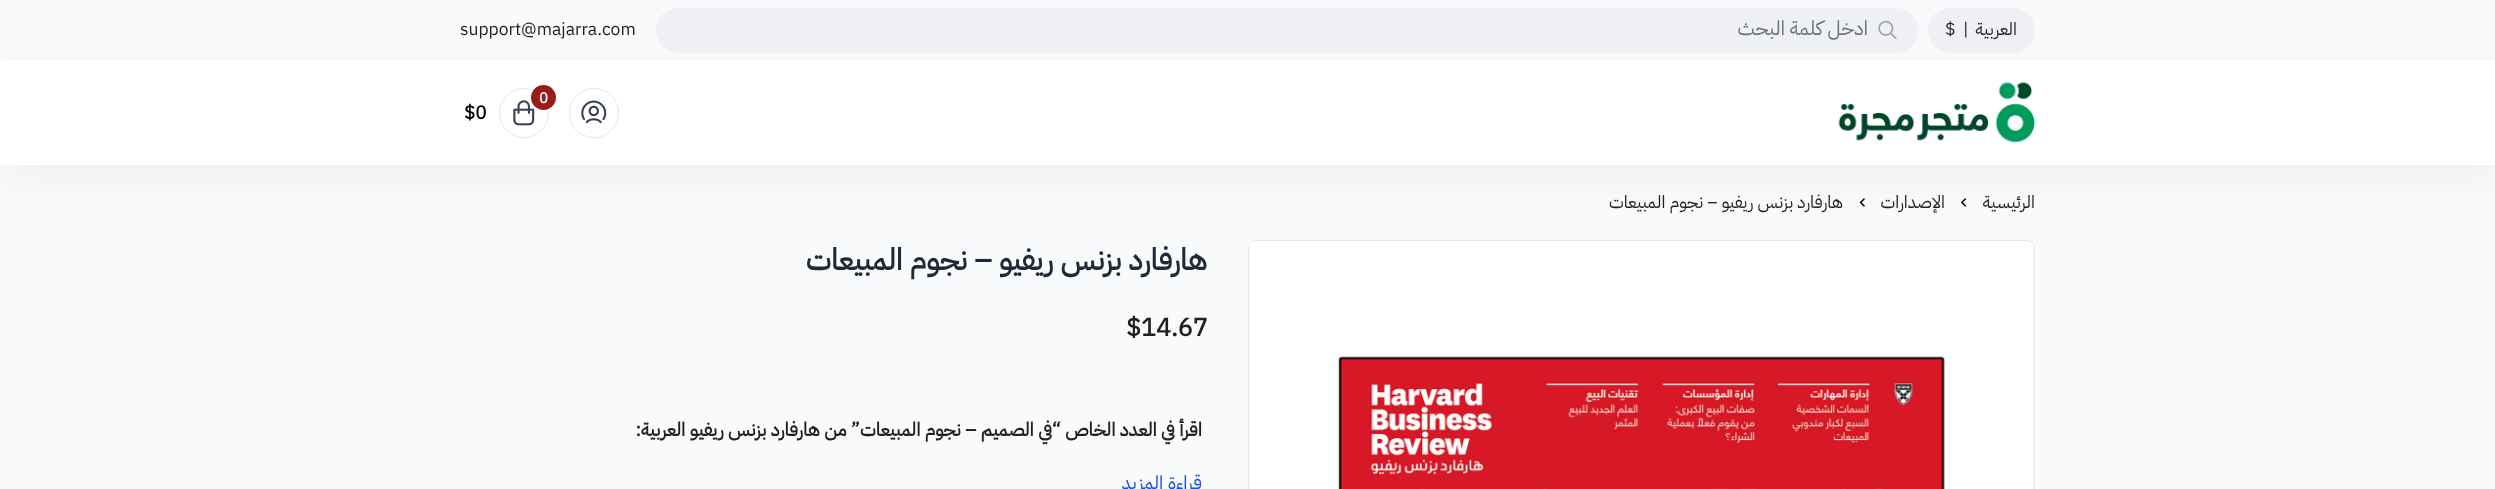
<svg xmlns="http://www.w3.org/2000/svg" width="2495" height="489">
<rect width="100%" height="100%" fill="#f9fafb"/>
<rect x="6" y="73" width="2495" height="105" fill="#2b2d340d" filter="blur(19px)"/>
<rect x="1928" y="8" width="107" height="45" rx="22.5" fill="#eff0f3"/>
<text x="2017" y="35" style="font-family:IBM Plex Sans Arabic;font-size:17.5px;direction:rtl;fill:#231f1e">العربية</text>
<text x="1963" y="35" style="font-family:IBM Plex Sans Arabic;font-size:17.5px;fill:#231f1e">|</text>
<text x="1945" y="35" style="font-family:IBM Plex Sans Arabic;font-size:17.5px;fill:#231f1e">$</text>
<rect x="656" y="8" width="1262" height="45" rx="22.5" fill="#eff0f3"/>
<image x="1878" y="20" width="19" height="20" href="media/1.png"/>
<text x="1868" y="35" style="font-family:IBM Plex Sans Arabic;font-size:20px;direction:rtl;fill:#6b7280">ادخل كلمة البحث</text>
<text x="460" y="35" style="font-family:IBM Plex Sans Arabic;font-size:17.5px;fill:#231f1e">support@majarra.com</text>
<rect y="60" width="2495" height="105" fill="#fff"/>
<image x="1838" y="82" width="197" height="61" href="media/2.png"/>
<circle cx="594" cy="113" r="24.5" fill="none" stroke="#e5e7eb"/>
<image x="581" y="100" width="26" height="24" href="media/3.png"/>
<circle cx="524" cy="113" r="24.5" fill="none" stroke="#e5e7eb"/>
<image x="513" y="100" width="22" height="26" href="media/4.png"/>
<circle cx="543.5" cy="97.5" r="12.5" fill="#991b1b"/>
<text x="539" y="103" style="font-family:IBM Plex Sans Arabic;font-size:15px;font-weight:bold;fill:#fff">0</text>
<text x="464" y="119" style="font-family:IBM Plex Sans Arabic;font-size:18.75px;font-weight:bold;fill:#000">$0</text>
<text x="2035" y="208" style="font-family:IBM Plex Sans Arabic;font-size:17.5px;direction:rtl;fill:#231f1e">الرئيسية</text>
<image x="1960" y="198" width="7" height="9" href="media/5.png"/>
<text x="1945" y="208" style="font-family:IBM Plex Sans Arabic;font-size:17.5px;direction:rtl;fill:#231f1e">الإصدارات</text>
<image x="1859" y="198" width="6" height="9" href="media/6.png"/>
<text x="1843" y="208" style="font-family:IBM Plex Sans Arabic;font-size:17.5px;direction:rtl;fill:#231f1e">هارفارد بزنس ريفيو – نجوم المبيعات</text>
<rect x="1248.5" y="240.5" width="786" height="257" rx="7.5" fill="#fff" stroke="#e5e7eb"/>
<rect x="1249.5" y="241.5" width="784" height="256" rx="7.5" fill="none" stroke="#f3f4f6"/>
<image x="1249" y="241" width="785" height="248" href="media/7.png"/>
<text x="1207" y="270" style="font-family:IBM Plex Sans Arabic;font-size:30px;font-weight:bold;direction:rtl;fill:#1f2937">هارفارد بزنس ريفيو – نجوم المبيعات</text>
<text x="1126" y="336" style="font-family:IBM Plex Sans Arabic;font-size:25px;font-weight:bold;fill:#231f1e">$14.67</text>
<text x="1202" y="436" style="font-family:IBM Plex Sans Arabic;font-size:18.75px;font-weight:bold;direction:rtl;fill:#231f1e">اقرأ في العدد الخاص “في الصميم – نجوم المبيعات” من هارفارد بزنس ريفيو العربية:</text>
<text x="1202" y="489" style="font-family:IBM Plex Sans Arabic;font-size:18.75px;direction:rtl;fill:#1d4ed8">قراءة المزيد</text>
</svg>
